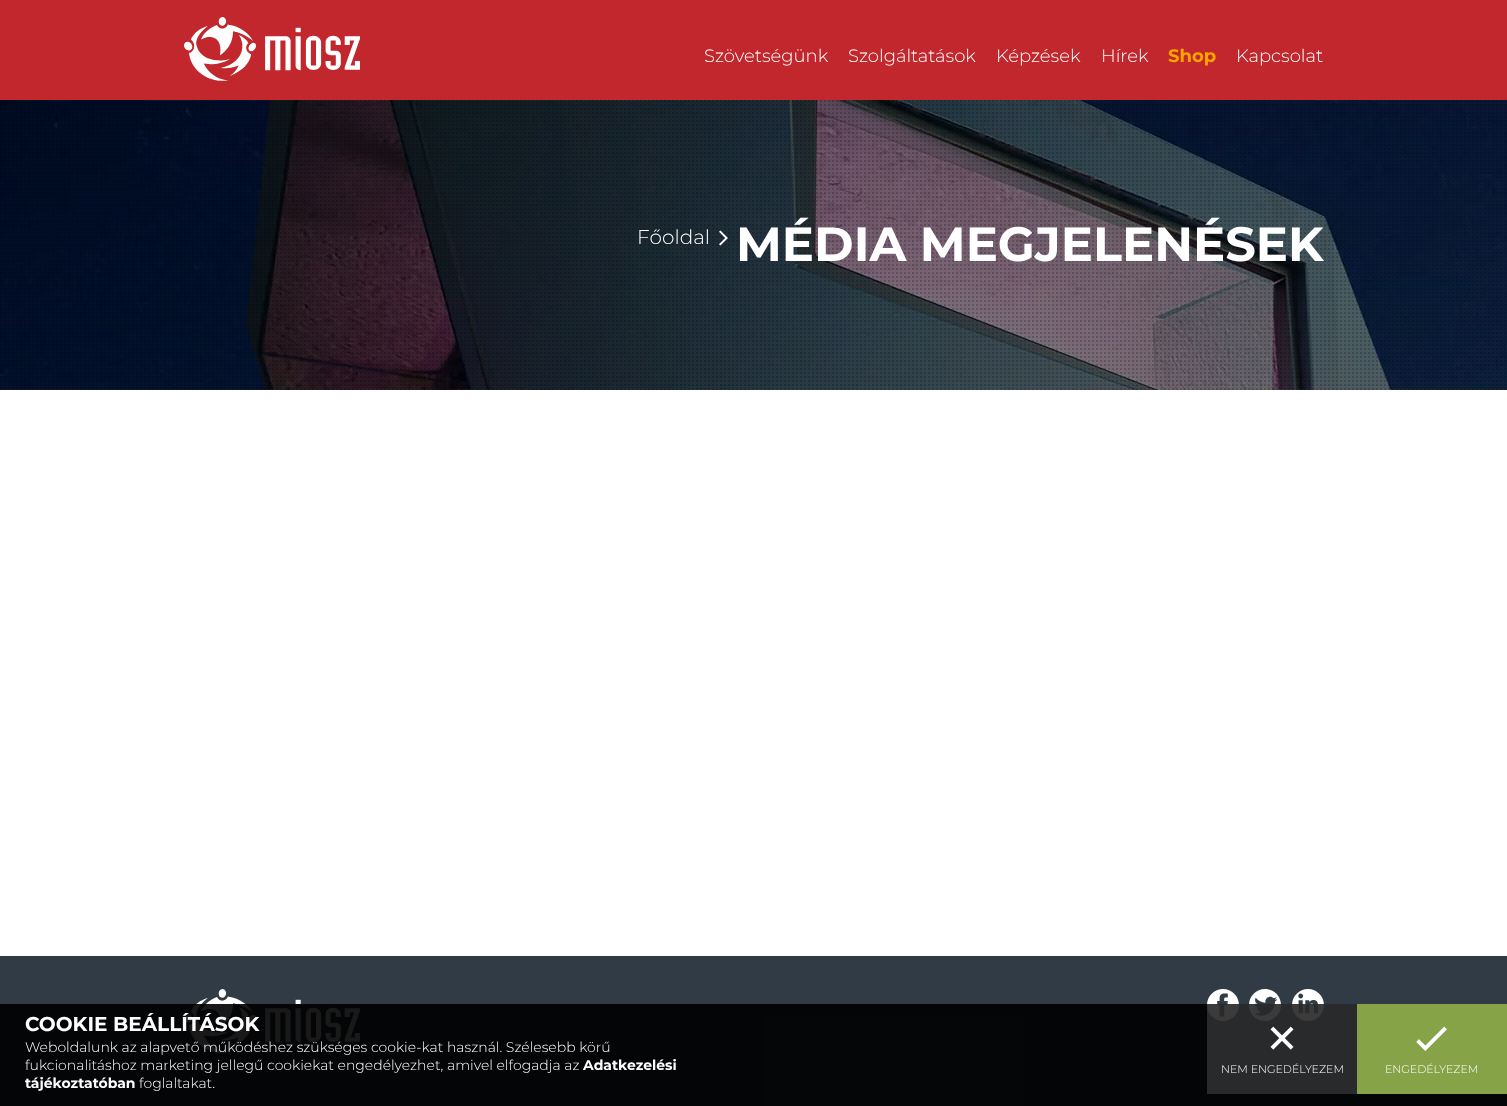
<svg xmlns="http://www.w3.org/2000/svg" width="1507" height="1106">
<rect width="100%" height="100%" fill="#fff"/>
<rect width="1507" height="100" fill="#c1272c"/>
<image x="184" y="17" width="176" height="64" href="media/1.png"/>
<text x="704" y="62" style="font-family:Montserrat;font-size:18px;font-weight:300;fill:#fff">Szövetségünk</text>
<text x="848" y="62" style="font-family:Montserrat;font-size:18px;font-weight:300;fill:#fff">Szolgáltatások</text>
<text x="996" y="62" style="font-family:Montserrat;font-size:18px;font-weight:300;fill:#fff">Képzések</text>
<text x="1101" y="62" style="font-family:Montserrat;font-size:18px;font-weight:300;fill:#fff">Hírek</text>
<text x="1168" y="62" style="font-family:Montserrat;font-size:18px;font-weight:bold;fill:#ffa500">Shop</text>
<text x="1236" y="62" style="font-family:Montserrat;font-size:18px;font-weight:300;fill:#fff">Kapcsolat</text>
<image x="0" y="100" width="1507" height="290" href="media/2.png"/>
<image x="0" y="100" width="1507" height="290" href="media/3.png"/>
<image x="719" y="230" width="9" height="16" href="media/4.png"/>
<text x="637" y="244" style="font-family:Montserrat;font-size:20px;font-weight:300;fill:#fff">Főoldal</text>
<text x="736" y="261" style="font-family:Montserrat;font-size:48px;font-weight:bold;fill:#fff">MÉDIA MEGJELENÉSEK</text>
<rect y="956" width="1507" height="150" fill="#313b45"/>
<image x="184" y="989" width="176" height="64" href="media/5.png"/>
<image x="1207" y="989" width="32" height="32" href="media/6.png"/>
<image x="1249" y="989" width="32" height="32" href="media/7.png"/>
<image x="1292" y="989" width="32" height="32" href="media/8.png"/>
<rect y="1004" width="1507" height="102" fill="#000000e6"/>
<text x="25" y="1031" style="font-family:Montserrat;font-size:20px;font-weight:bold;fill:#fff">COOKIE BEÁLLÍTÁSOK</text>
<text x="25" y="1052" style="font-family:Montserrat;font-size:14px;font-weight:300;fill:#fff">Weboldalunk az alapvető működéshez szükséges cookie-kat használ. Szélesebb körű</text>
<text x="25" y="1070" style="font-family:Montserrat;font-size:14px;font-weight:300;fill:#fff">fukcionalitáshoz marketing jellegű cookiekat engedélyezhet, amivel elfogadja az</text>
<text x="583" y="1070" style="font-family:Montserrat;font-size:14px;font-weight:bold;fill:#fff">Adatkezelési</text>
<text x="25" y="1088" style="font-family:Montserrat;font-size:14px;font-weight:bold;fill:#fff">tájékoztatóban</text>
<text x="139" y="1088" style="font-family:Montserrat;font-size:14px;font-weight:300;fill:#fff">foglaltakat.</text>
<rect x="1207" y="1004" width="150" height="90" fill="#ffffff26"/>
<image x="1270" y="1026" width="24" height="24" href="media/9.png"/>
<text x="1221" y="1073" style="font-family:Montserrat;font-size:11px;font-weight:300;fill:#fff">NEM ENGEDÉLYEZEM</text>
<rect x="1357" y="1004" width="150" height="90" fill="#86a348"/>
<image x="1416" y="1026" width="31" height="25" href="media/10.png"/>
<text x="1385" y="1073" style="font-family:Montserrat;font-size:11px;font-weight:300;fill:#fff">ENGEDÉLYEZEM</text>
</svg>
